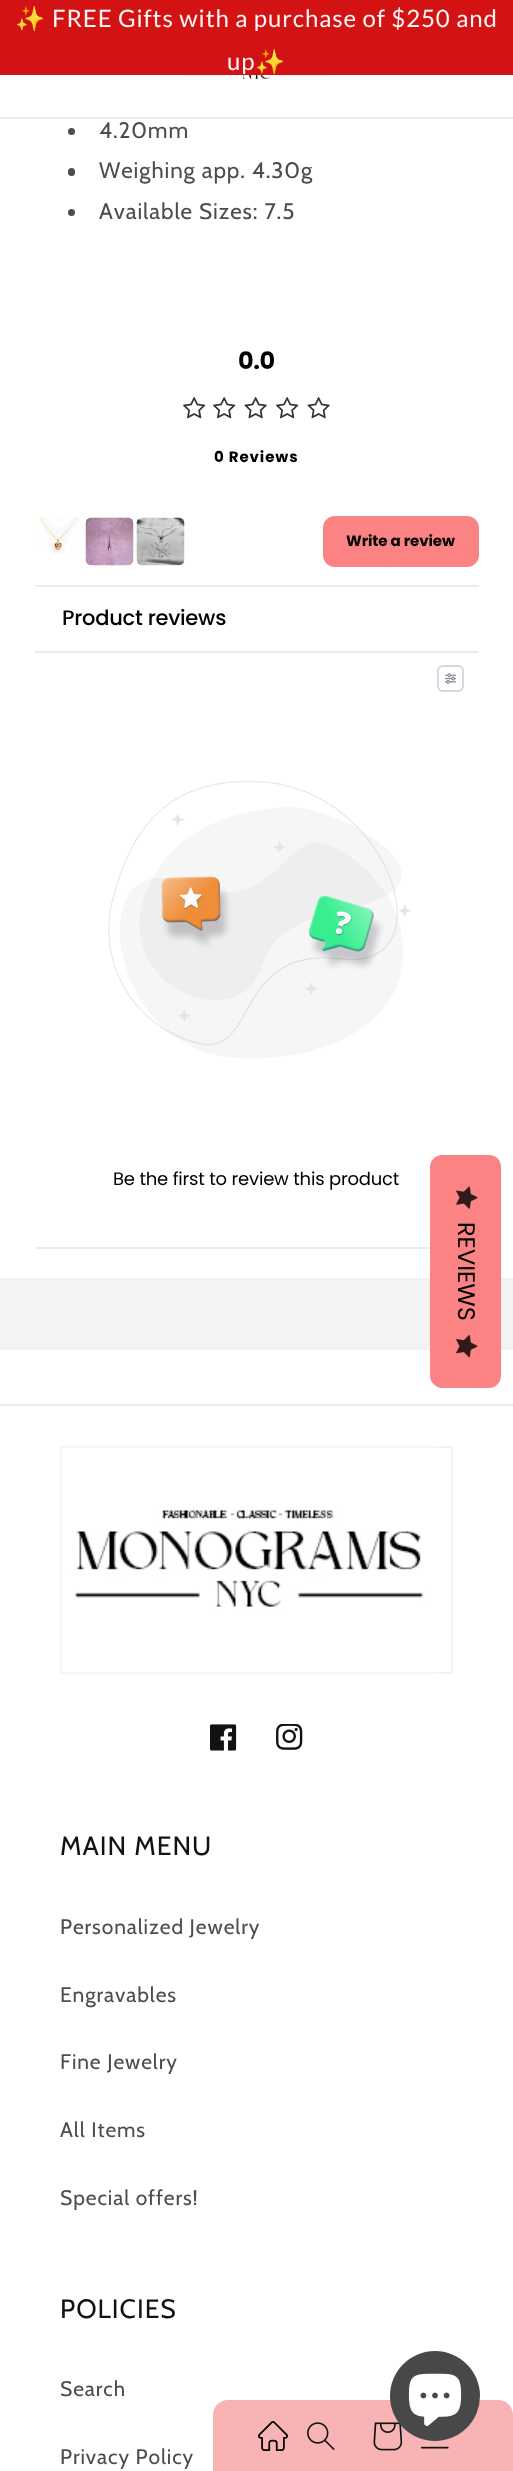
<svg xmlns="http://www.w3.org/2000/svg" width="513" height="2471">
<style>*{font-kerning:none!important;font-variant-ligatures:none!important}</style>
<rect width="100%" height="100%" fill="#fff"/>
<rect width="513" height="75" fill="#d31313"/>
<text x="15" y="27" style="font-family:Noto Color Emoji;font-size:24px;letter-spacing:0.9px;fill:#fbf5f5">✨</text>
<text x="52" y="27" style="font-family:Lato;font-size:24px;letter-spacing:0.9px;fill:#fbf5f5">FREE Gifts with a purchase of $250 and</text>
<text x="227" y="70" style="font-family:Lato;font-size:24px;letter-spacing:0.9px;fill:#fbf5f5">up</text>
<text x="255" y="70" style="font-family:Noto Color Emoji;font-size:24px;letter-spacing:0.9px;fill:#fbf5f5">✨</text>
<rect y="117" width="513" height="2" fill="#ececec"/>
<image x="182" y="75" width="149" height="4" href="media/1.png"/>
<circle cx="71.5" cy="131.5" r="3.5" fill="#4d4d4d"/>
<text x="99" y="138" style="font-family:Cabin;font-size:22.5px;letter-spacing:0.9px;fill:#4d4d4d">4.20mm</text>
<rect x="68" y="168" width="7" height="8" rx="3.5" fill="#4d4d4d"/>
<text x="99" y="178" style="font-family:Cabin;font-size:22.5px;letter-spacing:0.9px;fill:#4d4d4d">Weighing app. 4.30g</text>
<circle cx="71.5" cy="212.5" r="3.5" fill="#4d4d4d"/>
<text x="99" y="219" style="font-family:Cabin;font-size:22.5px;letter-spacing:0.9px;fill:#4d4d4d">Available Sizes: 7.5</text>
<text x="238" y="369" style="font-family:Poppins;font-size:24px;font-weight:bold;letter-spacing:-0.5px;fill:#000">0.0</text>
<image x="183" y="397" width="23" height="22" href="media/2.png"/>
<image x="213" y="397" width="23" height="22" href="media/2.png"/>
<image x="244" y="397" width="23" height="22" href="media/3.png"/>
<image x="276" y="397" width="23" height="22" href="media/2.png"/>
<image x="307" y="397" width="23" height="22" href="media/3.png"/>
<text x="214" y="462" style="font-family:Poppins;font-size:15px;font-weight:bold;letter-spacing:0.9px;fill:#000">0 Reviews</text>
<rect x="35" y="585" width="444" height="2" fill="#e9edf2"/>
<image x="38" y="517" width="44" height="37" href="media/4.png"/>
<image x="85" y="517" width="49" height="49" href="media/5.png"/>
<image x="136" y="517" width="49" height="49" href="media/6.png"/>
<rect x="323" y="516" width="156" height="51" rx="12" fill="#fb8383"/>
<text x="346" y="546" style="font-family:Poppins;font-size:15px;font-weight:bold;letter-spacing:-0.1px;fill:#000">Write a review</text>
<rect x="35" y="651" width="444" height="2" fill="#e8ebed"/>
<text x="62" y="625" style="font-family:Poppins;font-size:21px;font-weight:500;letter-spacing:-0.25px;fill:#000">Product reviews</text>
<rect x="438" y="666" width="25" height="25" rx="5" fill="none" stroke="#d2d8df" stroke-width="2"/>
<image x="445" y="673" width="11" height="11" href="media/7.png"/>
<rect x="35" y="1247" width="395" height="2" fill="#e9edf2"/>
<image x="108" y="781" width="303" height="278" href="media/8.png"/>
<text x="113" y="1185" style="font-family:Poppins;font-size:18px;letter-spacing:-0.2px;fill:#000">Be the first to review this product</text>
<rect y="1278" width="513" height="72" fill="#f3f3f3"/>
<path d="M501 1167v209c0 6-5 12-12 12h-47c-6 0-12-6-12-12v-209c0-7 6-12 12-12h47c7 0 12 5 12 12z" fill="#fb8383"/>
<image x="456" y="1186" width="22" height="23" href="media/9.png"/>
<text x="458" y="1222" transform="rotate(90 458 1222)" style="font-family:Poppins;font-size:24px;fill:#000">REVIEWS</text>
<image x="456" y="1335" width="22" height="23" href="media/10.png"/>
<rect y="1404" width="513" height="2" fill="#ececec"/>
<rect x="61" y="1447" width="391" height="226" fill="none" stroke="#f3f3f3" stroke-width="2"/>
<image x="61" y="1447" width="375" height="226" href="media/11.png"/>
<image x="210" y="1724" width="27" height="27" href="media/12.png"/>
<image x="276" y="1724" width="27" height="26" href="media/13.png"/>
<text x="60" y="1855" style="font-family:Cabin;font-size:26.5px;letter-spacing:1px;fill:#121212">MAIN MENU</text>
<text x="60" y="1934" style="font-family:Cabin;font-size:21px;letter-spacing:0.9px;fill:#4d4d4d">Personalized Jewelry</text>
<text x="60" y="2002" style="font-family:Cabin;font-size:21px;letter-spacing:0.9px;fill:#4d4d4d">Engravables</text>
<text x="60" y="2069" style="font-family:Cabin;font-size:21px;letter-spacing:0.9px;fill:#4d4d4d">Fine Jewelry</text>
<text x="60" y="2137" style="font-family:Cabin;font-size:21px;letter-spacing:0.9px;fill:#4d4d4d">All Items</text>
<text x="60" y="2205" style="font-family:Cabin;font-size:21px;letter-spacing:0.9px;fill:#4d4d4d">Special offers!</text>
<text x="60" y="2318" style="font-family:Cabin;font-size:26.5px;letter-spacing:1px;fill:#121212">POLICIES</text>
<text x="60" y="2396" style="font-family:Cabin;font-size:21px;letter-spacing:0.9px;fill:#4d4d4d">Search</text>
<text x="60" y="2464" style="font-family:Cabin;font-size:21px;letter-spacing:0.9px;fill:#4d4d4d">Privacy Policy</text>
<path d="M228 2400h270c8.5 0 15 6.5 15 15v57h-300v-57c0-8.5 6.5-15 15-15z" fill="#f8b4b4"/>
<image x="258" y="2421" width="30" height="30" href="media/14.png"/>
<image x="307" y="2422" width="28" height="28" href="media/15.png"/>
<image x="373" y="2422" width="30" height="29" href="media/16.png"/>
<image x="420" y="2446" width="29" height="3" href="media/17.png"/>
<circle cx="435" cy="2396" r="45" fill="#494848"/>
<image x="408" y="2373" width="54" height="53" href="media/18.png"/>
</svg>
